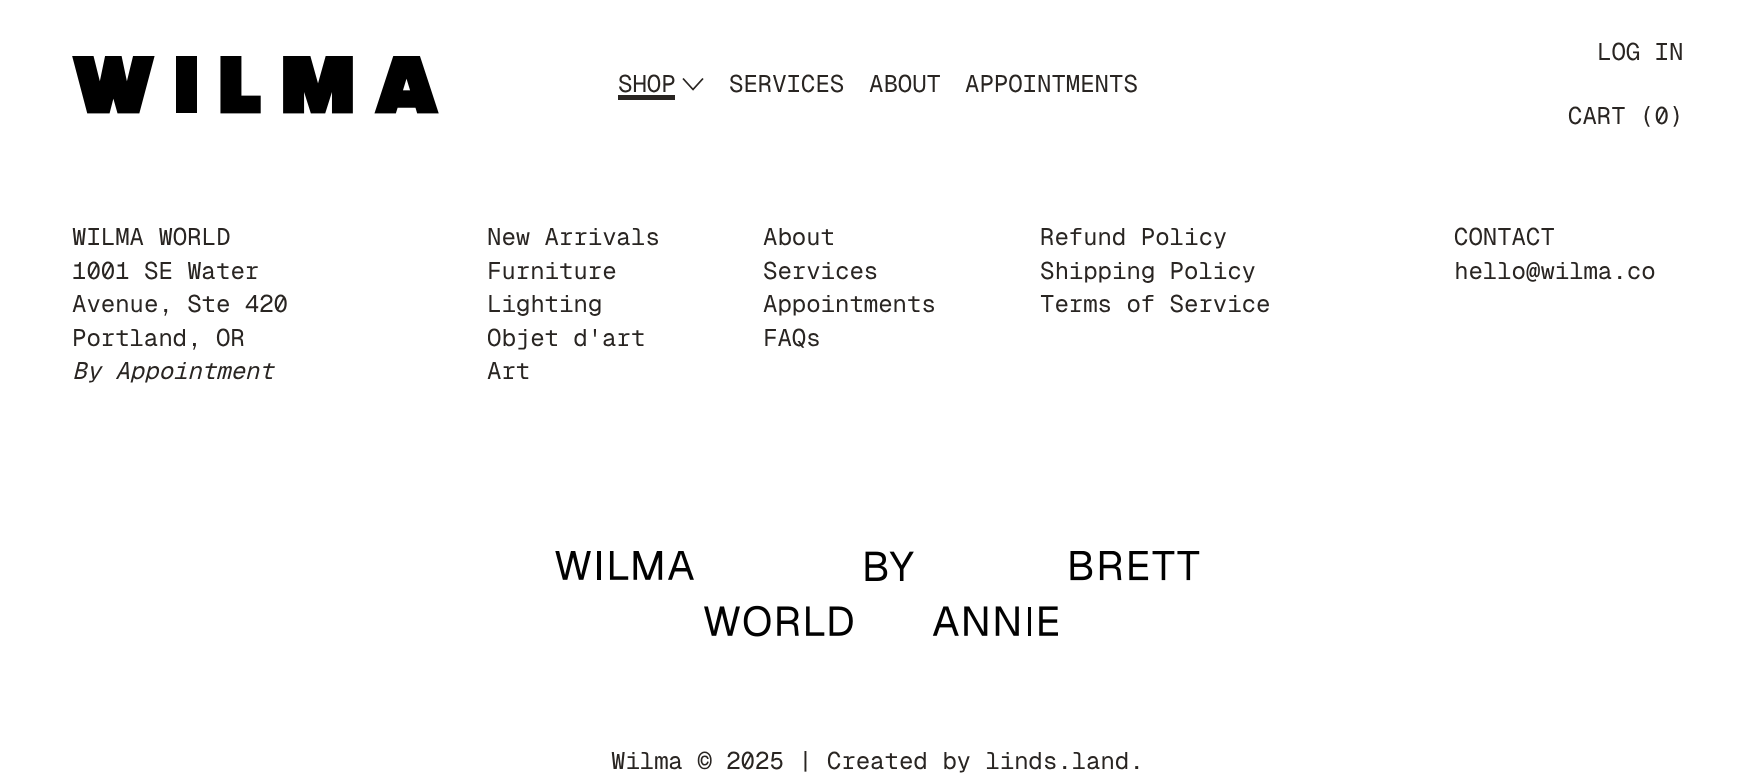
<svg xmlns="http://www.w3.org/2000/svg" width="1754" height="780">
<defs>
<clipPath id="clip1"><rect x="488" y="221" width="228" height="168"/></clipPath>
</defs>
<rect width="100%" height="100%" fill="#fff"/>
<image x="72" y="56" width="367" height="58" href="media/1.png"/>
<text x="618" y="92" style="font-family:Geist Mono;font-size:24px;fill:#292522">SHOP</text>
<rect x="618" y="95" width="57" height="5" fill="#292522"/>
<path d="M683 78.5l10 11l10-11" fill="none" stroke="#292522" stroke-width="1.8" stroke-linejoin="round"/>
<text x="729" y="92" style="font-family:Geist Mono;font-size:24px;fill:#292522">SERVICES</text>
<text x="869" y="92" style="font-family:Geist Mono;font-size:24px;fill:#292522">ABOUT</text>
<text x="965" y="92" style="font-family:Geist Mono;font-size:24px;fill:#292522">APPOINTMENTS</text>
<text x="1597" y="60" style="font-family:Geist Mono;font-size:24px;fill:#292522">LOG IN</text>
<text x="1568" y="124" style="font-family:Geist Mono;font-size:24px;fill:#292522">CART (0)</text>
<text x="72" y="245" style="font-family:Geist Mono;font-size:24px;fill:#292522">WILMA WORLD</text>
<text x="72" y="279" style="font-family:Geist Mono;font-size:24px;fill:#292522">1001 SE Water</text>
<text x="72" y="312" style="font-family:Geist Mono;font-size:24px;fill:#292522">Avenue, Ste 420</text>
<text x="72" y="346" style="font-family:Geist Mono;font-size:24px;fill:#292522">Portland, OR</text>
<text x="72" y="379" style="font-family:Geist Mono;font-size:24px;font-style:italic;fill:#292522">By Appointment</text>
<text x="487" y="245" style="font-family:Geist Mono;font-size:24px;fill:#292522">New Arrivals</text>
<text x="487" y="279" style="font-family:Geist Mono;font-size:24px;fill:#292522">Furniture</text>
<text x="487" y="312" style="font-family:Geist Mono;font-size:24px;fill:#292522">Lighting</text>
<g clip-path="url(#clip1)">
<text x="487" y="346" style="font-family:Geist Mono;font-size:24px;fill:#292522">Objet d'art</text>
</g>
<text x="487" y="379" style="font-family:Geist Mono;font-size:24px;fill:#292522">Art</text>
<text x="763" y="245" style="font-family:Geist Mono;font-size:24px;fill:#292522">About</text>
<text x="763" y="279" style="font-family:Geist Mono;font-size:24px;fill:#292522">Services</text>
<text x="763" y="312" style="font-family:Geist Mono;font-size:24px;fill:#292522">Appointments</text>
<text x="763" y="346" style="font-family:Geist Mono;font-size:24px;fill:#292522">FAQs</text>
<text x="1040" y="245" style="font-family:Geist Mono;font-size:24px;fill:#292522">Refund Policy</text>
<text x="1040" y="279" style="font-family:Geist Mono;font-size:24px;fill:#292522">Shipping Policy</text>
<text x="1040" y="312" style="font-family:Geist Mono;font-size:24px;fill:#292522">Terms of Service</text>
<text x="1454" y="245" style="font-family:Geist Mono;font-size:24px;fill:#292522">CONTACT</text>
<text x="1454" y="279" style="font-family:Geist Mono;font-size:24px;fill:#292522">hello@wilma.co</text>
<image x="555" y="551" width="645" height="86" href="media/2.png"/>
<text x="611" y="769" style="font-family:Geist Mono;font-size:24px;fill:#292522">Wilma © 2025 | Created by linds.land.</text>
</svg>
